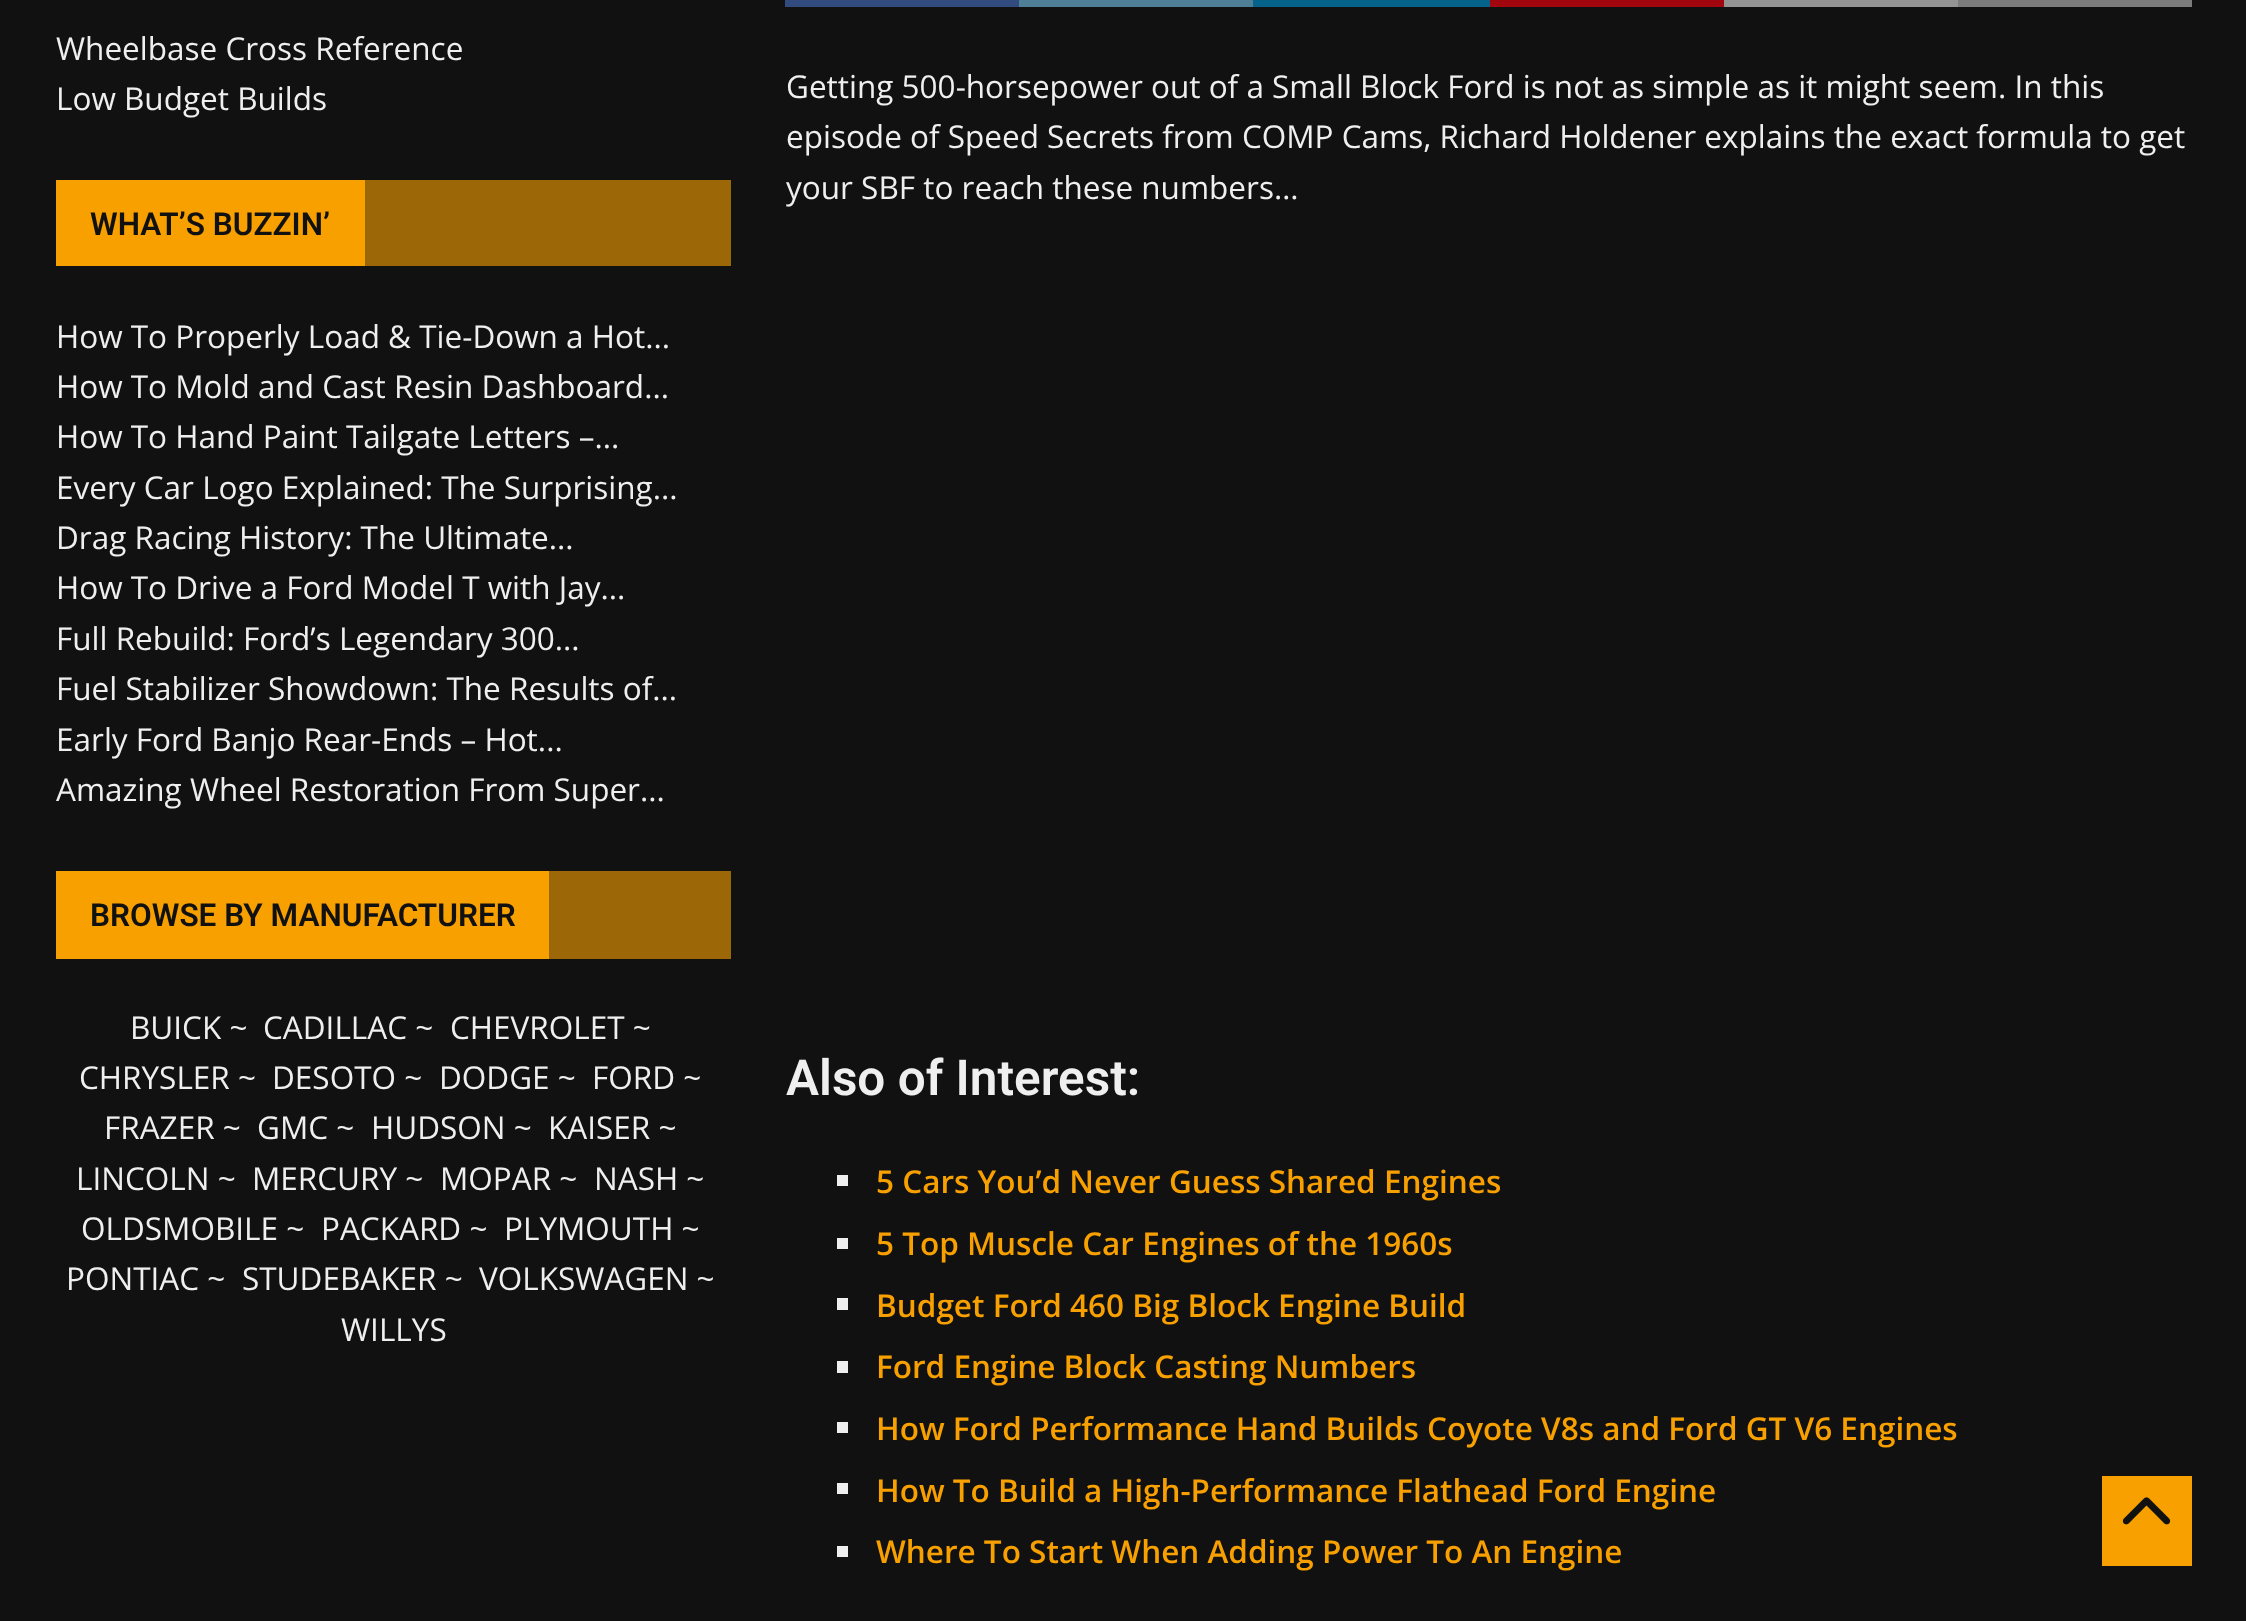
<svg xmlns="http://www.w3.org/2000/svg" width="2246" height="1621">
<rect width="100%" height="100%" fill="#111"/>
<text x="56" y="60" style="font-family:Open Sans;font-size:31.5px;fill:#efefef">Wheelbase Cross Reference</text>
<text x="56" y="110" style="font-family:Open Sans;font-size:31.5px;fill:#efefef">Low Budget Builds</text>
<rect x="365" y="180" width="366" height="86" fill="#9b6707"/>
<rect x="56" y="180" width="309" height="86" fill="#f7a000"/>
<text x="90" y="235" style="font-family:Roboto;font-size:31.5px;font-weight:600;fill:#111">WHAT’S BUZZIN’</text>
<text x="56" y="348" style="font-family:Open Sans;font-size:31.5px;fill:#efefef">How To Properly Load &amp; Tie-Down a Hot...</text>
<text x="56" y="398" style="font-family:Open Sans;font-size:31.5px;fill:#efefef">How To Mold and Cast Resin Dashboard...</text>
<text x="56" y="448" style="font-family:Open Sans;font-size:31.5px;fill:#efefef">How To Hand Paint Tailgate Letters –...</text>
<text x="56" y="499" style="font-family:Open Sans;font-size:31.5px;fill:#efefef">Every Car Logo Explained: The Surprising...</text>
<text x="56" y="549" style="font-family:Open Sans;font-size:31.5px;fill:#efefef">Drag Racing History: The Ultimate...</text>
<text x="56" y="599" style="font-family:Open Sans;font-size:31.5px;fill:#efefef">How To Drive a Ford Model T with Jay...</text>
<text x="56" y="650" style="font-family:Open Sans;font-size:31.5px;fill:#efefef">Full Rebuild: Ford’s Legendary 300...</text>
<text x="56" y="700" style="font-family:Open Sans;font-size:31.5px;fill:#efefef">Fuel Stabilizer Showdown: The Results of...</text>
<text x="56" y="751" style="font-family:Open Sans;font-size:31.5px;fill:#efefef">Early Ford Banjo Rear-Ends – Hot...</text>
<text x="56" y="801" style="font-family:Open Sans;font-size:31.5px;fill:#efefef">Amazing Wheel Restoration From Super...</text>
<rect x="549" y="871" width="182" height="88" fill="#9b6707"/>
<rect x="56" y="871" width="493" height="88" fill="#f7a000"/>
<text x="90" y="926" style="font-family:Roboto;font-size:31.5px;font-weight:600;fill:#111">BROWSE BY MANUFACTURER</text>
<text x="130" y="1039" style="font-family:Open Sans;font-size:31.5px;fill:#efefef">BUICK ~</text>
<text x="263" y="1039" style="font-family:Open Sans;font-size:31.5px;fill:#efefef">CADILLAC ~</text>
<text x="450" y="1039" style="font-family:Open Sans;font-size:31.5px;fill:#efefef">CHEVROLET ~</text>
<text x="79" y="1089" style="font-family:Open Sans;font-size:31.5px;fill:#efefef">CHRYSLER ~</text>
<text x="272" y="1089" style="font-family:Open Sans;font-size:31.5px;fill:#efefef">DESOTO ~</text>
<text x="439" y="1089" style="font-family:Open Sans;font-size:31.5px;fill:#efefef">DODGE ~</text>
<text x="592" y="1089" style="font-family:Open Sans;font-size:31.5px;fill:#efefef">FORD ~</text>
<text x="104" y="1139" style="font-family:Open Sans;font-size:31.5px;fill:#efefef">FRAZER ~</text>
<text x="257" y="1139" style="font-family:Open Sans;font-size:31.5px;fill:#efefef">GMC ~</text>
<text x="371" y="1139" style="font-family:Open Sans;font-size:31.5px;fill:#efefef">HUDSON ~</text>
<text x="548" y="1139" style="font-family:Open Sans;font-size:31.5px;fill:#efefef">KAISER ~</text>
<text x="76" y="1190" style="font-family:Open Sans;font-size:31.5px;fill:#efefef">LINCOLN ~</text>
<text x="252" y="1190" style="font-family:Open Sans;font-size:31.5px;fill:#efefef">MERCURY ~</text>
<text x="440" y="1190" style="font-family:Open Sans;font-size:31.5px;fill:#efefef">MOPAR ~</text>
<text x="594" y="1190" style="font-family:Open Sans;font-size:31.5px;fill:#efefef">NASH ~</text>
<text x="81" y="1240" style="font-family:Open Sans;font-size:31.5px;fill:#efefef">OLDSMOBILE ~</text>
<text x="321" y="1240" style="font-family:Open Sans;font-size:31.5px;fill:#efefef">PACKARD ~</text>
<text x="504" y="1240" style="font-family:Open Sans;font-size:31.5px;fill:#efefef">PLYMOUTH ~</text>
<text x="66" y="1290" style="font-family:Open Sans;font-size:31.5px;fill:#efefef">PONTIAC ~</text>
<text x="242" y="1290" style="font-family:Open Sans;font-size:31.5px;fill:#efefef">STUDEBAKER ~</text>
<text x="479" y="1290" style="font-family:Open Sans;font-size:31.5px;fill:#efefef">VOLKSWAGEN ~</text>
<text x="341" y="1341" style="font-family:Open Sans;font-size:31.5px;fill:#efefef">WILLYS</text>
<rect x="785" width="234" height="7" fill="#314b7e"/>
<rect x="1019" width="234" height="7" fill="#4f7e97"/>
<rect x="1253" width="237" height="7" fill="#05628b"/>
<rect x="1490" width="234" height="7" fill="#a1060e"/>
<rect x="1724" width="234" height="7" fill="#949494"/>
<rect x="1958" width="234" height="7" fill="#7c7c7c"/>
<text x="786" y="98" style="font-family:Open Sans;font-size:31.5px;fill:#efefef">Getting 500-horsepower out of a Small Block Ford is not as simple as it might seem. In this</text>
<text x="786" y="148" style="font-family:Open Sans;font-size:31.5px;fill:#efefef">episode of Speed Secrets from COMP Cams, Richard Holdener explains the exact formula to get</text>
<text x="786" y="199" style="font-family:Open Sans;font-size:31.5px;fill:#efefef">your SBF to reach these numbers…</text>
<text x="786" y="1095" style="font-family:Roboto;font-size:49.5px;font-weight:600;fill:#efefef">Also of Interest:</text>
<rect x="837" y="1175" width="11" height="11" fill="#efefef"/>
<text x="876" y="1193" style="font-family:Open Sans;font-size:31.5px;font-weight:600;fill:#f7a000">5 Cars You’d Never Guess Shared Engines</text>
<rect x="837" y="1238" width="11" height="11" fill="#efefef"/>
<text x="876" y="1255" style="font-family:Open Sans;font-size:31.5px;font-weight:600;fill:#f7a000">5 Top Muscle Car Engines of the 1960s</text>
<rect x="837" y="1298" width="11" height="12" fill="#efefef"/>
<text x="876" y="1317" style="font-family:Open Sans;font-size:31.5px;font-weight:600;fill:#f7a000">Budget Ford 460 Big Block Engine Build</text>
<rect x="837" y="1361" width="11" height="12" fill="#efefef"/>
<text x="876" y="1378" style="font-family:Open Sans;font-size:31.5px;font-weight:600;fill:#f7a000">Ford Engine Block Casting Numbers</text>
<rect x="837" y="1422" width="11" height="11" fill="#efefef"/>
<text x="876" y="1440" style="font-family:Open Sans;font-size:31.5px;font-weight:600;fill:#f7a000">How Ford Performance Hand Builds Coyote V8s and Ford GT V6 Engines</text>
<rect x="837" y="1483" width="11" height="11" fill="#efefef"/>
<text x="876" y="1502" style="font-family:Open Sans;font-size:31.5px;font-weight:600;fill:#f7a000">How To Build a High-Performance Flathead Ford Engine</text>
<rect x="837" y="1546" width="11" height="11" fill="#efefef"/>
<text x="876" y="1563" style="font-family:Open Sans;font-size:31.5px;font-weight:600;fill:#f7a000">Where To Start When Adding Power To An Engine</text>
<rect x="2102" y="1476" width="90" height="90" fill="#f7a000"/>
<image x="2122" y="1497" width="49" height="28" href="media/1.png"/>
</svg>
